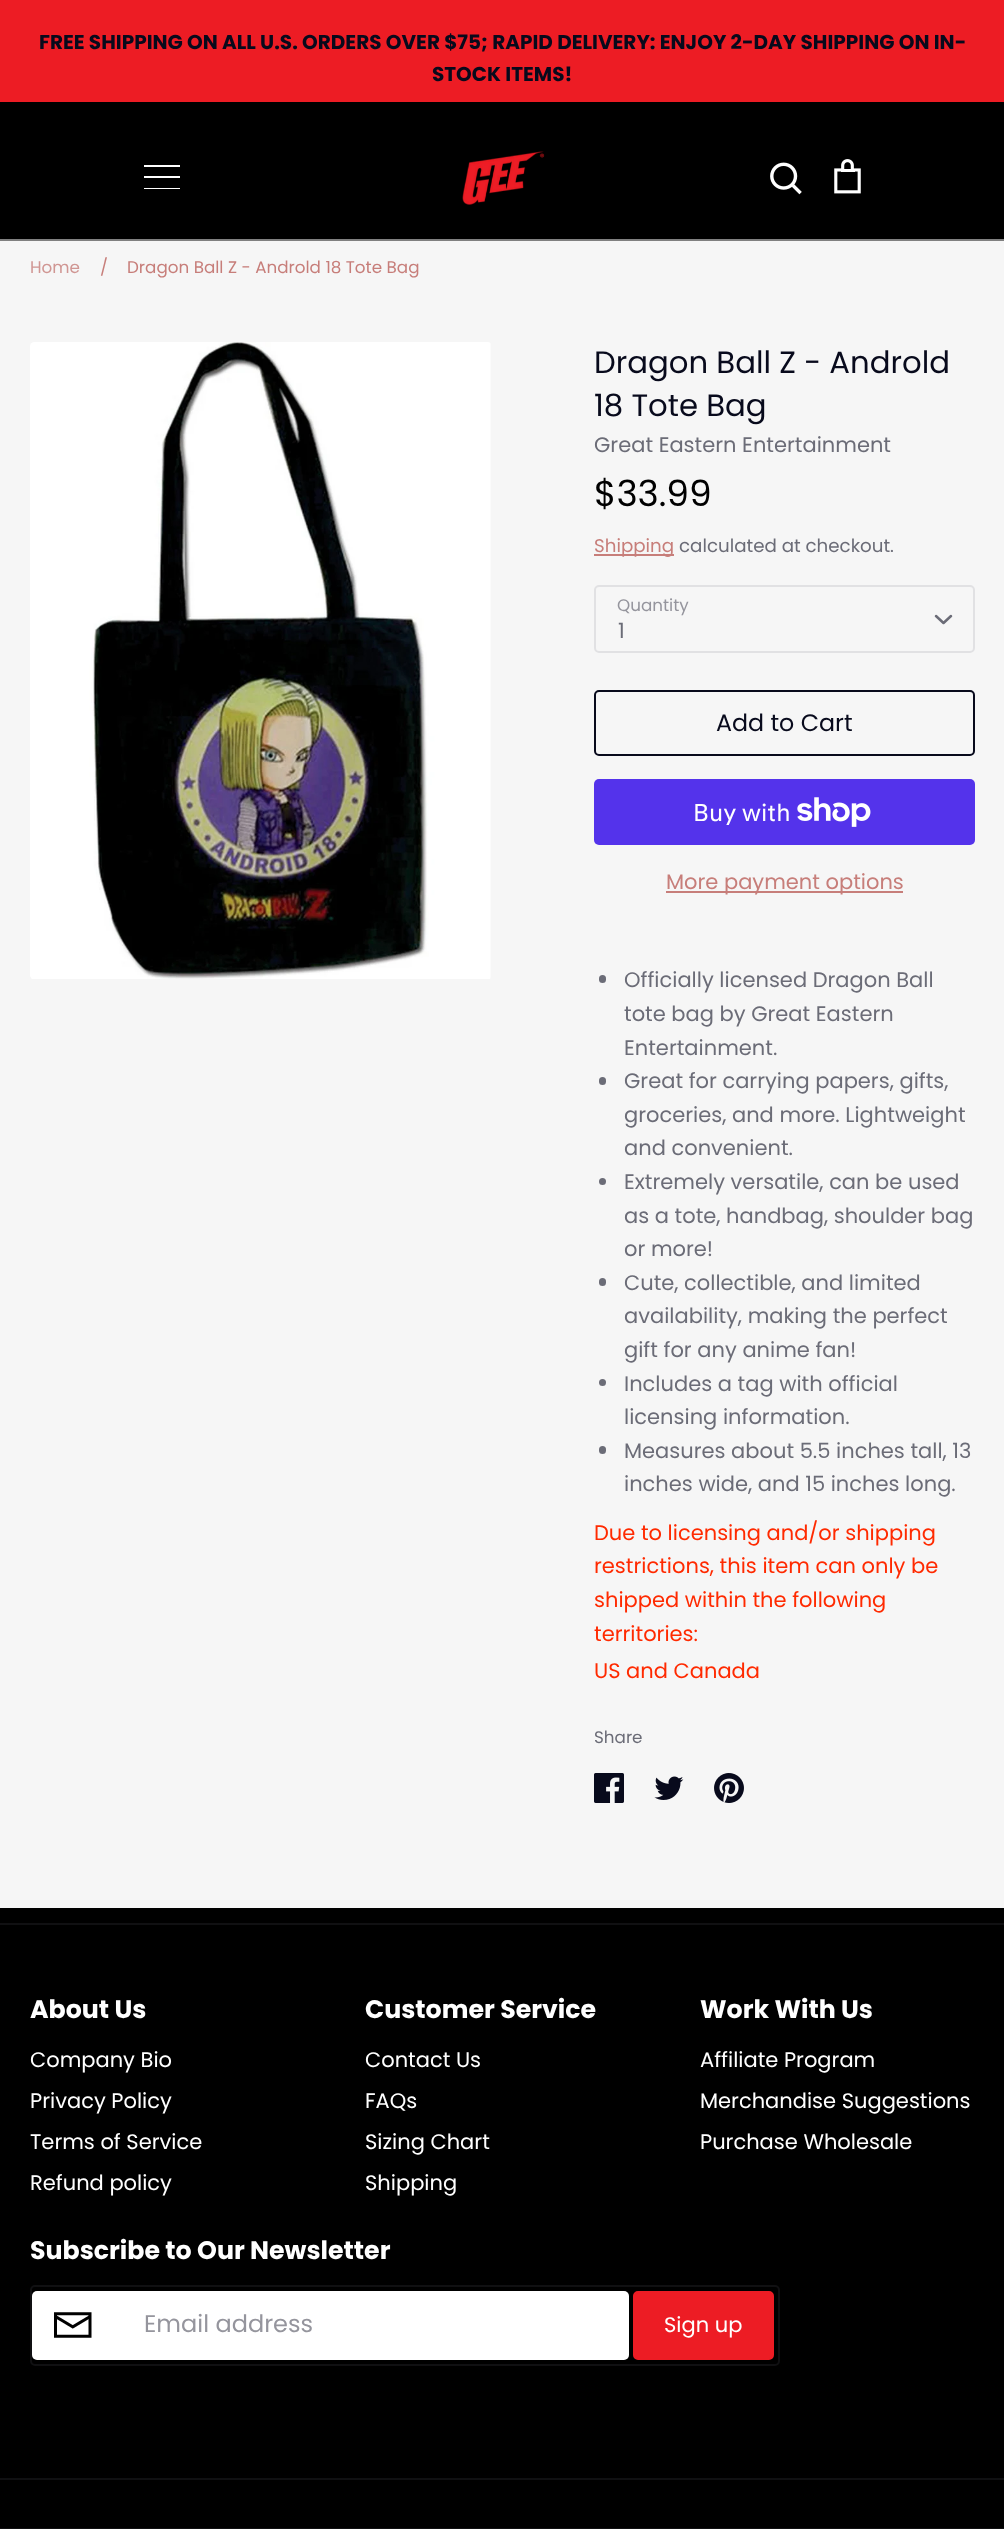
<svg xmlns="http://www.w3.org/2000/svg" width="1004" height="2529">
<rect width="100%" height="100%" fill="#ed1c24"/>
<text x="39" y="49" style="font-family:Poppins;font-size:20px;font-weight:bold;fill:#080a1c">FREE SHIPPING ON ALL U.S. ORDERS OVER $75; RAPID DELIVERY: ENJOY 2-DAY SHIPPING ON IN-</text>
<text x="432" y="81" style="font-family:Poppins;font-size:20px;font-weight:bold;fill:#080a1c">STOCK ITEMS!</text>
<rect y="102" width="1004" height="137" fill="#000"/>
<rect y="239" width="1004" height="2" fill="#808080"/>
<rect x="144" y="165" width="36" height="2" fill="#fff"/>
<rect x="144" y="176" width="36" height="2" fill="#fff"/>
<rect x="144" y="188" width="36" height="1" fill="#fff"/>
<image x="462" y="151" width="83" height="54" href="media/1.png"/>
<image x="770" y="162" width="32" height="33" href="media/2.png"/>
<image x="834" y="159" width="27" height="35" href="media/3.png"/>
<rect y="2528" width="1004" height="1" fill="#101012"/>
<rect y="241" width="1004" height="1667" fill="#f6f6f6"/>
<text x="30" y="273" style="font-family:Poppins;font-size:16.75px;fill:#d09693">Home</text>
<text x="100" y="273" style="font-family:Poppins;font-size:16.75px;fill:#c77e7a">/</text>
<text x="127" y="273" style="font-family:Poppins;font-size:16.75px;fill:#c77e7a">Dragon Ball Z - Androld 18 Tote Bag</text>
<image x="30" y="342" width="461" height="637" href="media/4.png"/>
<text x="594" y="373" style="font-family:Poppins;font-size:30.75px;fill:#080a1c">Dragon Ball Z - Androld</text>
<text x="594" y="416" style="font-family:Poppins;font-size:30.75px;fill:#080a1c">18 Tote Bag</text>
<text x="594" y="452" style="font-family:Poppins;font-size:21px;fill:#6b6c77">Great Eastern Entertainment</text>
<text x="594" y="506" style="font-family:Poppins;font-size:36px;fill:#000">$33.99</text>
<rect x="594" y="554" width="80" height="2" fill="#c77e7a"/>
<text x="594" y="552" style="font-family:Poppins;font-size:18.25px;fill:#c77e7a">Shipping</text>
<text x="679" y="552" style="font-family:Poppins;font-size:18.25px;fill:#6b6c77">calculated at checkout.</text>
<text x="617" y="611" style="font-family:Poppins;font-size:16.75px;fill:#95959d">Quantity</text>
<rect x="595" y="586" width="379" height="66" rx="4" fill="none" stroke="#e1e1e3" stroke-width="2"/>
<path d="M936 616l7.5 7l7.5-7" fill="none" stroke="#6b6c77" stroke-width="2.5" stroke-linecap="round" stroke-linejoin="round"/>
<text x="618" y="638" style="font-family:Poppins;font-size:21px;fill:#6b6c77">1</text>
<rect x="595" y="691" width="379" height="64" rx="4" fill="none" stroke="#080a1c" stroke-width="2"/>
<text x="716" y="731" style="font-family:Poppins;font-size:23.75px;fill:#080a1c">Add to Cart</text>
<rect x="594" y="779" width="381" height="66" rx="5" fill="#5433eb"/>
<text x="693" y="821" style="font-family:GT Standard;font-size:24px;fill:#fff">Buy with</text>
<image x="797" y="797" width="74" height="30" href="media/5.png"/>
<rect x="666" y="891" width="237" height="2" fill="#c77e7a"/>
<text x="666" y="889" style="font-family:Poppins;font-size:21px;fill:#c77e7a">More payment options</text>
<rect x="599" y="975" width="7" height="8" rx="3.5" fill="#6b6c77"/>
<text x="624" y="987" style="font-family:Poppins;font-size:21px;fill:#6b6c77">Officially licensed Dragon Ball</text>
<text x="624" y="1021" style="font-family:Poppins;font-size:21px;fill:#6b6c77">tote bag by Great Eastern</text>
<text x="624" y="1055" style="font-family:Poppins;font-size:21px;fill:#6b6c77">Entertainment.</text>
<rect x="599" y="1077" width="7" height="8" rx="3.5" fill="#6b6c77"/>
<text x="624" y="1088" style="font-family:Poppins;font-size:21px;fill:#6b6c77">Great for carrying papers, gifts,</text>
<text x="624" y="1122" style="font-family:Poppins;font-size:21px;fill:#6b6c77">groceries, and more. Lightweight</text>
<text x="624" y="1155" style="font-family:Poppins;font-size:21px;fill:#6b6c77">and convenient.</text>
<circle cx="602.5" cy="1181.5" r="3.5" fill="#6b6c77"/>
<text x="624" y="1189" style="font-family:Poppins;font-size:21px;fill:#6b6c77">Extremely versatile, can be used</text>
<text x="624" y="1223" style="font-family:Poppins;font-size:21px;fill:#6b6c77">as a tote, handbag, shoulder bag</text>
<text x="624" y="1256" style="font-family:Poppins;font-size:21px;fill:#6b6c77">or more!</text>
<rect x="599" y="1278" width="7" height="8" rx="3.5" fill="#6b6c77"/>
<text x="624" y="1290" style="font-family:Poppins;font-size:21px;fill:#6b6c77">Cute, collectible, and limited</text>
<text x="624" y="1323" style="font-family:Poppins;font-size:21px;fill:#6b6c77">availability, making the perfect</text>
<text x="624" y="1357" style="font-family:Poppins;font-size:21px;fill:#6b6c77">gift for any anime fan!</text>
<circle cx="602.5" cy="1382.5" r="3.5" fill="#6b6c77"/>
<text x="624" y="1391" style="font-family:Poppins;font-size:21px;fill:#6b6c77">Includes a tag with official</text>
<text x="624" y="1424" style="font-family:Poppins;font-size:21px;fill:#6b6c77">licensing information.</text>
<rect x="599" y="1446" width="7" height="8" rx="3.5" fill="#6b6c77"/>
<text x="624" y="1458" style="font-family:Poppins;font-size:21px;fill:#6b6c77">Measures about 5.5 inches tall, 13</text>
<text x="624" y="1491" style="font-family:Poppins;font-size:21px;fill:#6b6c77">inches wide, and 15 inches long.</text>
<text x="594" y="1540" style="font-family:Poppins;font-size:21px;fill:#ff2a00">Due to licensing and/or shipping</text>
<text x="594" y="1573" style="font-family:Poppins;font-size:21px;fill:#ff2a00">restrictions, this item can only be</text>
<text x="594" y="1607" style="font-family:Poppins;font-size:21px;fill:#ff2a00">shipped within the following</text>
<text x="594" y="1641" style="font-family:Poppins;font-size:21px;fill:#ff2a00">territories:</text>
<text x="594" y="1678" style="font-family:Poppins;font-size:21px;fill:#ff2a00">US and Canada</text>
<text x="594" y="1743" style="font-family:Poppins;font-size:16.75px;fill:#6b6c77">Share</text>
<image x="594" y="1773" width="30" height="30" href="media/6.png"/>
<image x="654" y="1776" width="30" height="24" href="media/7.png"/>
<image x="714" y="1773" width="30" height="30" href="media/8.png"/>
<rect y="1908" width="1004" height="620" fill="#000"/>
<rect y="1923" width="1004" height="2" fill="#101012"/>
<rect y="2478" width="1004" height="2" fill="#101012"/>
<text x="30" y="2018" style="font-family:Poppins;font-size:25.25px;font-weight:bold;fill:#fff">About Us</text>
<text x="30" y="2067" style="font-family:Poppins;font-size:21px;fill:#fff">Company Bio</text>
<text x="30" y="2108" style="font-family:Poppins;font-size:21px;fill:#fff">Privacy Policy</text>
<text x="30" y="2149" style="font-family:Poppins;font-size:21px;fill:#fff">Terms of Service</text>
<text x="30" y="2190" style="font-family:Poppins;font-size:21px;fill:#fff">Refund policy</text>
<text x="365" y="2018" style="font-family:Poppins;font-size:25.25px;font-weight:bold;fill:#fff">Customer Service</text>
<text x="365" y="2067" style="font-family:Poppins;font-size:21px;fill:#fff">Contact Us</text>
<text x="365" y="2108" style="font-family:Poppins;font-size:21px;fill:#fff">FAQs</text>
<text x="365" y="2149" style="font-family:Poppins;font-size:21px;fill:#fff">Sizing Chart</text>
<text x="365" y="2190" style="font-family:Poppins;font-size:21px;fill:#fff">Shipping</text>
<text x="700" y="2018" style="font-family:Poppins;font-size:25.25px;font-weight:bold;fill:#fff">Work With Us</text>
<text x="700" y="2067" style="font-family:Poppins;font-size:21px;fill:#fff">Affiliate Program</text>
<text x="700" y="2108" style="font-family:Poppins;font-size:21px;fill:#fff">Merchandise Suggestions</text>
<text x="700" y="2149" style="font-family:Poppins;font-size:21px;fill:#fff">Purchase Wholesale</text>
<text x="30" y="2259" style="font-family:Poppins;font-size:25.25px;font-weight:bold;fill:#fff">Subscribe to Our Newsletter</text>
<rect x="31" y="2286" width="748" height="79" rx="4" fill="none" stroke="#101012" stroke-width="2"/>
<rect x="32" y="2291" width="597" height="69" rx="5" fill="#fff"/>
<image x="54" y="2312" width="38" height="26" href="media/9.png"/>
<text x="144" y="2332" style="font-family:Poppins;font-size:24px;fill:#95959d">Email address</text>
<rect x="634" y="2292" width="139" height="67" rx="4" fill="#ed1c24" stroke="#ed1c24" stroke-width="2"/>
<text x="664" y="2332" style="font-family:Poppins;font-size:21px;fill:#fff">Sign up</text>
</svg>
